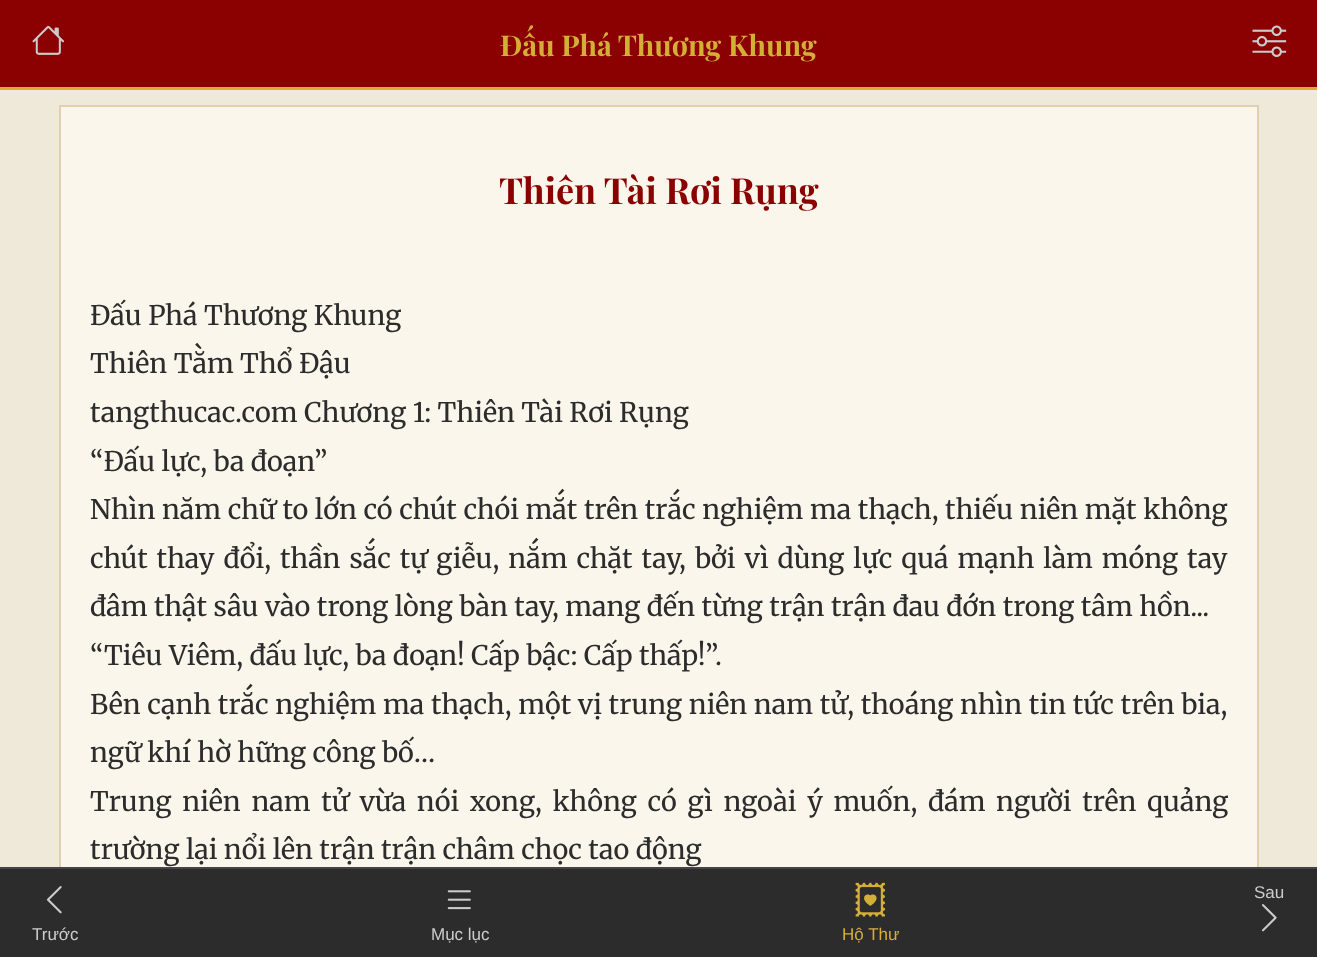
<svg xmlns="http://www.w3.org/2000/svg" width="1317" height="957">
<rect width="100%" height="100%" fill="#efe9d9"/>
<rect width="1317" height="87" fill="#8b0000"/>
<rect y="87" width="1317" height="3" fill="#d4af37"/>
<image x="32" y="26" width="33" height="29" href="media/1.png"/>
<text x="500" y="56" style="font-family:Playfair Display;font-size:28.75px;font-weight:bold;fill:#d4af37">Đấu Phá Thương Khung</text>
<image x="1252" y="25" width="35" height="32" href="media/2.png"/>
<rect x="61" y="107" width="1196" height="760" fill="#fbf6ec"/>
<rect x="60" y="106" width="1198" height="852" fill="none" stroke="#e0d0b0" stroke-width="2"/>
<text x="499" y="204" style="font-family:Playfair Display;font-size:36px;font-weight:bold;fill:#8b0000">Thiên Tài Rơi Rụng</text>
<text x="90" y="325" style="font-family:Merriweather;font-size:27px;fill:#2c2c2c">Đấu Phá Thương Khung</text>
<text x="90" y="373" style="font-family:Merriweather;font-size:27px;fill:#2c2c2c">Thiên Tằm Thổ Đậu</text>
<text x="90" y="422" style="font-family:Merriweather;font-size:27px;fill:#2c2c2c">tangthucac.com Chương 1: Thiên Tài Rơi Rụng</text>
<text x="90" y="471" style="font-family:Merriweather;font-size:27px;fill:#2c2c2c">“Đấu lực, ba đoạn”</text>
<text x="90" y="519" word-spacing="0.2" style="font-family:Merriweather;font-size:27px;fill:#2c2c2c">Nhìn năm chữ to lớn có chút chói mắt trên trắc nghiệm ma thạch, thiếu niên mặt không</text>
<text x="90" y="568" word-spacing="2.5" style="font-family:Merriweather;font-size:27px;fill:#2c2c2c">chút thay đổi, thần sắc tự giễu, nắm chặt tay, bởi vì dùng lực quá mạnh làm móng tay</text>
<text x="90" y="616" style="font-family:Merriweather;font-size:27px;fill:#2c2c2c">đâm thật sâu vào trong lòng bàn tay, mang đến từng trận trận đau đớn trong tâm hồn...</text>
<text x="90" y="665" style="font-family:Merriweather;font-size:27px;fill:#2c2c2c">“Tiêu Viêm, đấu lực, ba đoạn! Cấp bậc: Cấp thấp!”.</text>
<text x="90" y="714" word-spacing="0.2" style="font-family:Merriweather;font-size:27px;fill:#2c2c2c">Bên cạnh trắc nghiệm ma thạch, một vị trung niên nam tử, thoáng nhìn tin tức trên bia,</text>
<text x="90" y="762" style="font-family:Merriweather;font-size:27px;fill:#2c2c2c">ngữ khí hờ hững công bố…</text>
<text x="90" y="811" word-spacing="4.25" style="font-family:Merriweather;font-size:27px;fill:#2c2c2c">Trung niên nam tử vừa nói xong, không có gì ngoài ý muốn, đám người trên quảng</text>
<text x="90" y="859" style="font-family:Merriweather;font-size:27px;fill:#2c2c2c">trường lại nổi lên trận trận châm chọc tao động</text>
<rect y="869" width="1317" height="88" fill="#2c2c2c"/>
<rect y="867" width="1317" height="2" fill="#444"/>
<text x="1254" y="898" style="font-family:Liberation Sans;font-size:17px;fill:#ccc">Sau</text>
<image x="1261" y="904" width="16" height="28" href="media/3.png"/>
<image x="46" y="886" width="16" height="28" href="media/4.png"/>
<text x="32" y="940" style="font-family:Liberation Sans;font-size:17px;fill:#ccc">Trước</text>
<image x="447" y="890" width="24" height="20" href="media/5.png"/>
<text x="431" y="940" style="font-family:Liberation Sans;font-size:17px;fill:#ccc">Mục lục</text>
<image x="855" y="882" width="30" height="35" href="media/6.png"/>
<text x="842" y="940" style="font-family:Liberation Sans;font-size:17px;fill:#d4af37">Hộ Thư</text>
</svg>
